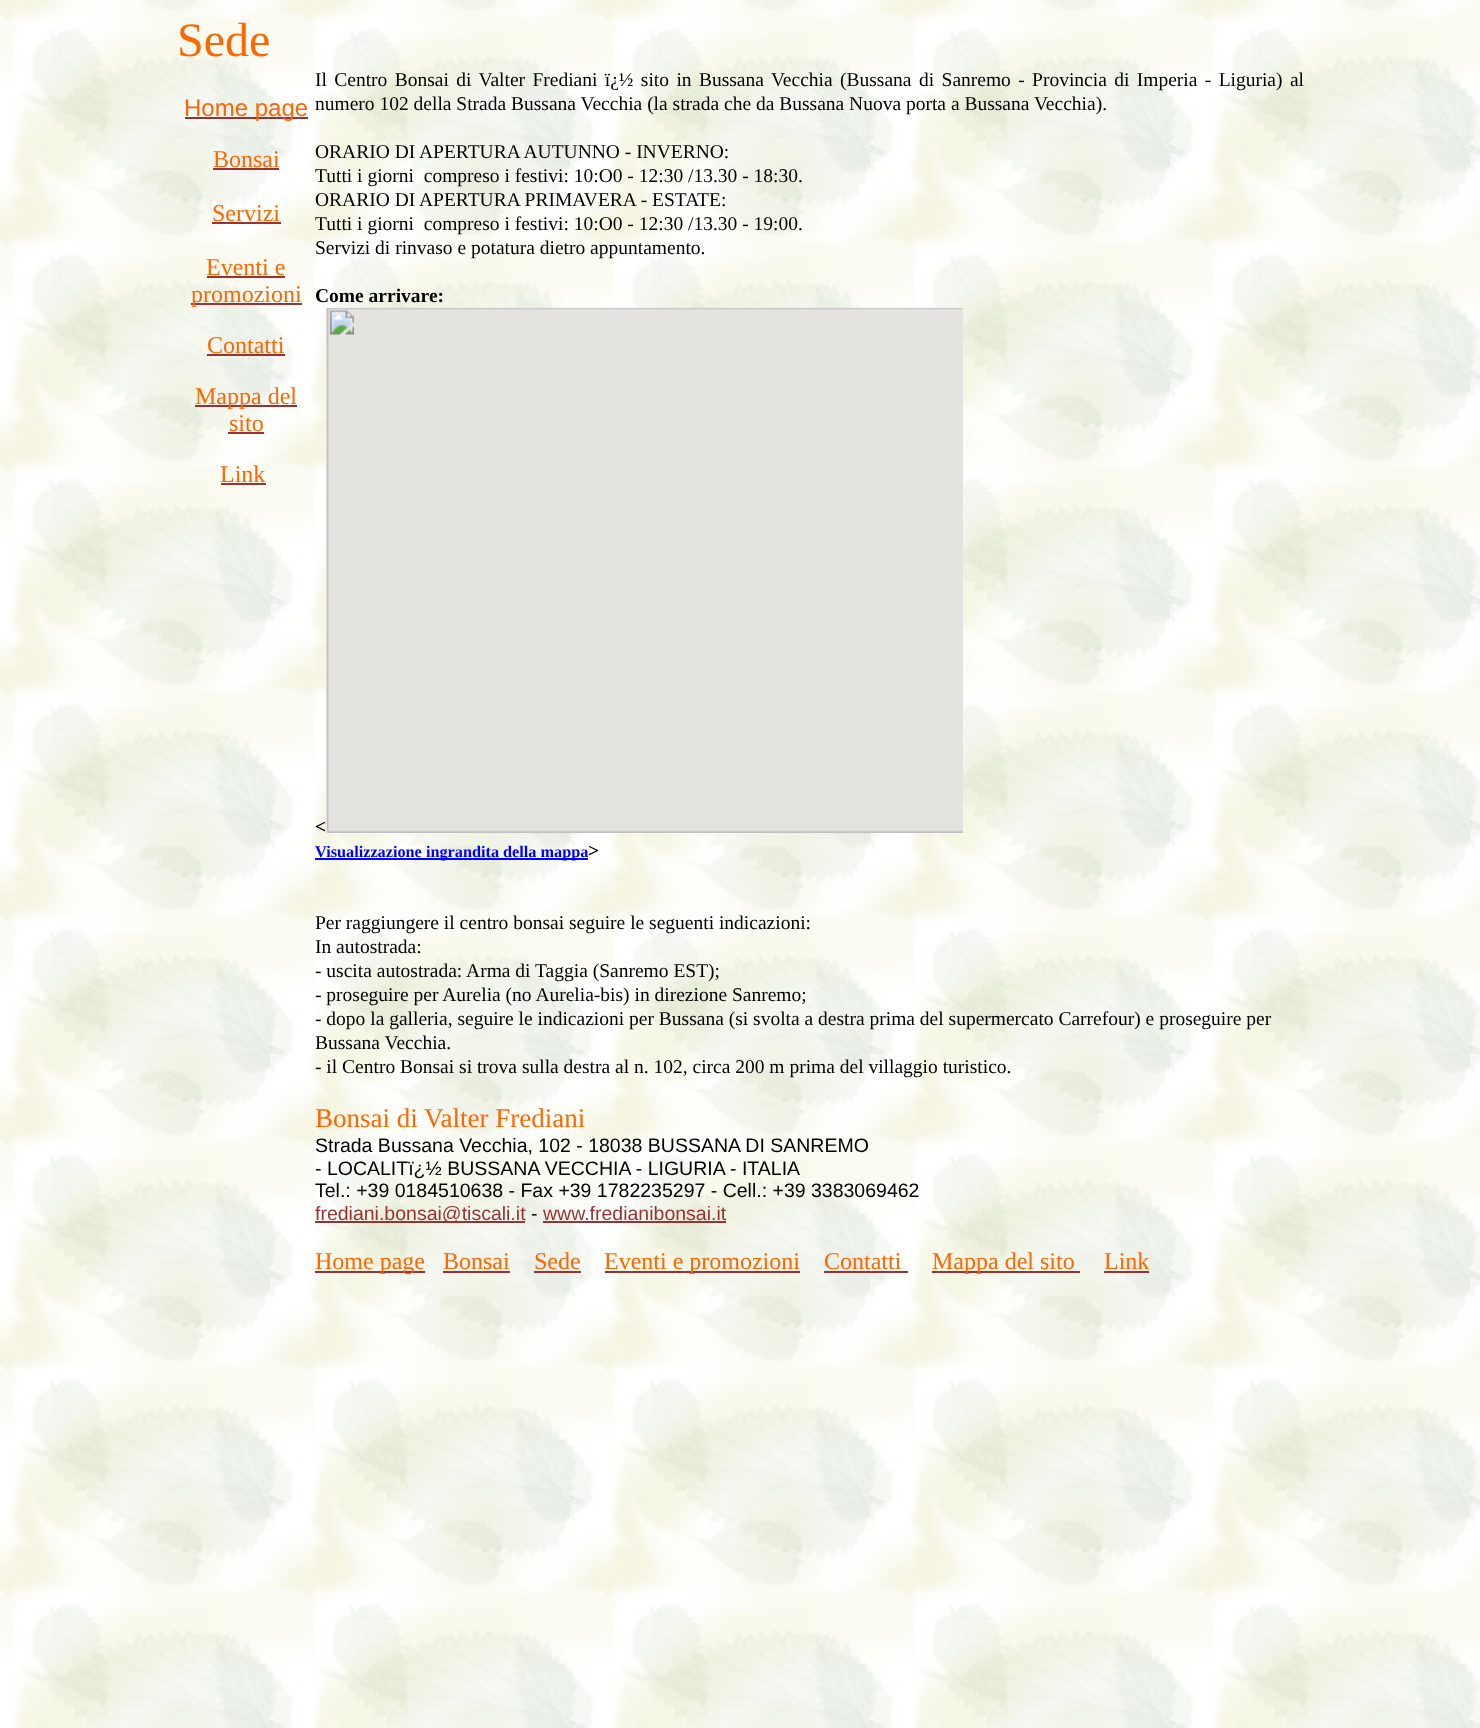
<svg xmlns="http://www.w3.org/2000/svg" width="1480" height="1728">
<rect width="100%" height="100%" fill="#fff"/>
<image x="0" y="0" width="1480" height="1728" href="media/1.png"/>
<text x="177" y="56" style="font-family:Liberation Serif;font-size:48px;fill:#f60">Sede</text>
<rect x="185" y="117" width="123" height="2" fill="#933"/>
<text x="184" y="116" style="font-family:Liberation Sans;font-size:24px;fill:#f60">Home page</text>
<text x="213" y="167" style="font-family:Liberation Serif;font-size:24px;fill:#f60">Bonsai</text>
<rect x="213" y="168" width="66" height="2" fill="#933"/>
<text x="212" y="221" style="font-family:Liberation Serif;font-size:24px;fill:#f60">Servizi</text>
<rect x="212" y="222" width="69" height="2" fill="#933"/>
<text x="206" y="275" style="font-family:Liberation Serif;font-size:24px;fill:#f60">Eventi e</text>
<rect x="207" y="276" width="78" height="2" fill="#933"/>
<rect x="191" y="303" width="111" height="2" fill="#933"/>
<text x="191" y="302" style="font-family:Liberation Serif;font-size:24px;fill:#f60">promozioni</text>
<text x="207" y="353" style="font-family:Liberation Serif;font-size:24px;fill:#f60">Contatti</text>
<rect x="207" y="354" width="78" height="2" fill="#933"/>
<rect x="195" y="405" width="102" height="2" fill="#933"/>
<text x="195" y="404" style="font-family:Liberation Serif;font-size:24px;fill:#f60">Mappa del</text>
<text x="229" y="431" style="font-family:Liberation Serif;font-size:24px;fill:#f60">sito</text>
<rect x="228" y="432" width="36" height="2" fill="#933"/>
<text x="220" y="482" style="font-family:Liberation Serif;font-size:24px;fill:#f60">Link</text>
<rect x="221" y="483" width="45" height="2" fill="#933"/>
<text x="315" y="86" word-spacing="2.5" style="font-family:Liberation Serif;font-size:19.5px;fill:#000">Il Centro Bonsai di Valter Frediani ï¿½ sito in Bussana Vecchia (Bussana</text>
<text x="919" y="86" word-spacing="2.5" style="font-family:Liberation Serif;font-size:19.5px;fill:#000">di Sanremo - Provincia di Imperia - Liguria) al</text>
<text x="315" y="110" style="font-family:Liberation Serif;font-size:19.5px;fill:#000">numero 102 della Strada Bussana Vecchia (la strada che da Bussana Nuova porta a Bussana Vecchia).</text>
<text x="315" y="158" style="font-family:Liberation Serif;font-size:19.5px;fill:#000">ORARIO DI APERTURA AUTUNNO - INVERNO:</text>
<text x="315" y="182" style="font-family:Liberation Serif;font-size:19.5px;fill:#000" xml:space="preserve">Tutti i giorni  compreso i festivi: 10:O0 - 12:30 /13.30 - 18:30.</text>
<text x="315" y="206" style="font-family:Liberation Serif;font-size:19.5px;fill:#000">ORARIO DI APERTURA PRIMAVERA - ESTATE:</text>
<text x="315" y="230" style="font-family:Liberation Serif;font-size:19.5px;fill:#000" xml:space="preserve">Tutti i giorni  compreso i festivi: 10:O0 - 12:30 /13.30 - 19:00.</text>
<text x="315" y="254" style="font-family:Liberation Serif;font-size:19.5px;fill:#000">Servizi di rinvaso e potatura dietro appuntamento.</text>
<text x="315" y="302" style="font-family:Liberation Serif;font-size:19.5px;font-weight:bold;fill:#000">Come arrivare:</text>
<text x="315" y="833" style="font-family:Liberation Serif;font-size:19.5px;font-weight:bold;fill:#000">&lt;</text>
<image x="325" y="307" width="638" height="526" href="media/2.png"/>
<rect x="315" y="858" width="273" height="2" fill="#00f"/>
<text x="315" y="857" style="font-family:Liberation Serif;font-size:16.25px;font-weight:bold;fill:#00f">Visualizzazione ingrandita della mappa</text>
<text x="588" y="857" style="font-family:Liberation Serif;font-size:19.5px;font-weight:bold;fill:#000">&gt;</text>
<text x="315" y="929" style="font-family:Liberation Serif;font-size:19.5px;fill:#000">Per raggiungere il centro bonsai seguire le seguenti indicazioni:</text>
<text x="315" y="953" style="font-family:Liberation Serif;font-size:19.5px;fill:#000">In autostrada:</text>
<text x="315" y="977" style="font-family:Liberation Serif;font-size:19.5px;fill:#000">- uscita autostrada: Arma di Taggia (Sanremo EST);</text>
<text x="315" y="1001" style="font-family:Liberation Serif;font-size:19.5px;fill:#000">- proseguire per Aurelia (no Aurelia-bis) in direzione Sanremo;</text>
<text x="315" y="1025" style="font-family:Liberation Serif;font-size:19.5px;fill:#000">- dopo la galleria, seguire le indicazioni per Bussana (si svolta a destra prima del supermercato Carrefour) e proseguire per</text>
<text x="315" y="1049" style="font-family:Liberation Serif;font-size:19.5px;fill:#000">Bussana Vecchia.</text>
<text x="315" y="1073" style="font-family:Liberation Serif;font-size:19.5px;fill:#000">- il Centro Bonsai si trova sulla destra al n. 102, circa 200 m prima del villaggio turistico.</text>
<text x="315" y="1127" style="font-family:Liberation Serif;font-size:27px;fill:#f60">Bonsai di Valter Frediani</text>
<text x="315" y="1152" style="font-family:Liberation Sans;font-size:19.5px;fill:#000">Strada Bussana Vecchia, 102 - 18038 BUSSANA DI SANREMO</text>
<text x="315" y="1175" style="font-family:Liberation Sans;font-size:19.5px;fill:#000">- LOCALITï¿½ BUSSANA VECCHIA - LIGURIA - ITALIA</text>
<text x="315" y="1197" style="font-family:Liberation Sans;font-size:19.5px;fill:#000">Tel.: +39 0184510638 - Fax +39 1782235297 - Cell.: +39 3383069462</text>
<rect x="315" y="1221" width="210" height="2" fill="#933"/>
<text x="315" y="1220" style="font-family:Liberation Sans;font-size:19.5px;fill:#933">frediani.bonsai@tiscali.it</text>
<text x="531" y="1220" style="font-family:Liberation Sans;font-size:19.5px;fill:#000">-</text>
<text x="543" y="1220" style="font-family:Liberation Sans;font-size:19.5px;fill:#933">www.fredianibonsai.it</text>
<rect x="543" y="1221" width="183" height="2" fill="#933"/>
<rect x="315" y="1271" width="110" height="2" fill="#933"/>
<text x="315" y="1269" style="font-family:Liberation Serif;font-size:24px;fill:#f60">Home page</text>
<text x="443" y="1269" style="font-family:Liberation Serif;font-size:24px;fill:#f60">Bonsai</text>
<rect x="443" y="1271" width="67" height="2" fill="#933"/>
<text x="534" y="1269" style="font-family:Liberation Serif;font-size:24px;fill:#f60">Sede</text>
<rect x="534" y="1271" width="47" height="2" fill="#933"/>
<rect x="605" y="1271" width="195" height="2" fill="#933"/>
<text x="604" y="1269" style="font-family:Liberation Serif;font-size:24px;fill:#f60">Eventi e promozioni</text>
<text x="824" y="1269" style="font-family:Liberation Serif;font-size:24px;fill:#f60">Contatti</text>
<rect x="824" y="1271" width="84" height="2" fill="#933"/>
<rect x="932" y="1271" width="148" height="2" fill="#933"/>
<text x="932" y="1269" style="font-family:Liberation Serif;font-size:24px;fill:#f60">Mappa del sito</text>
<text x="1104" y="1269" style="font-family:Liberation Serif;font-size:24px;fill:#f60">Link</text>
<rect x="1104" y="1271" width="45" height="2" fill="#933"/>
</svg>
